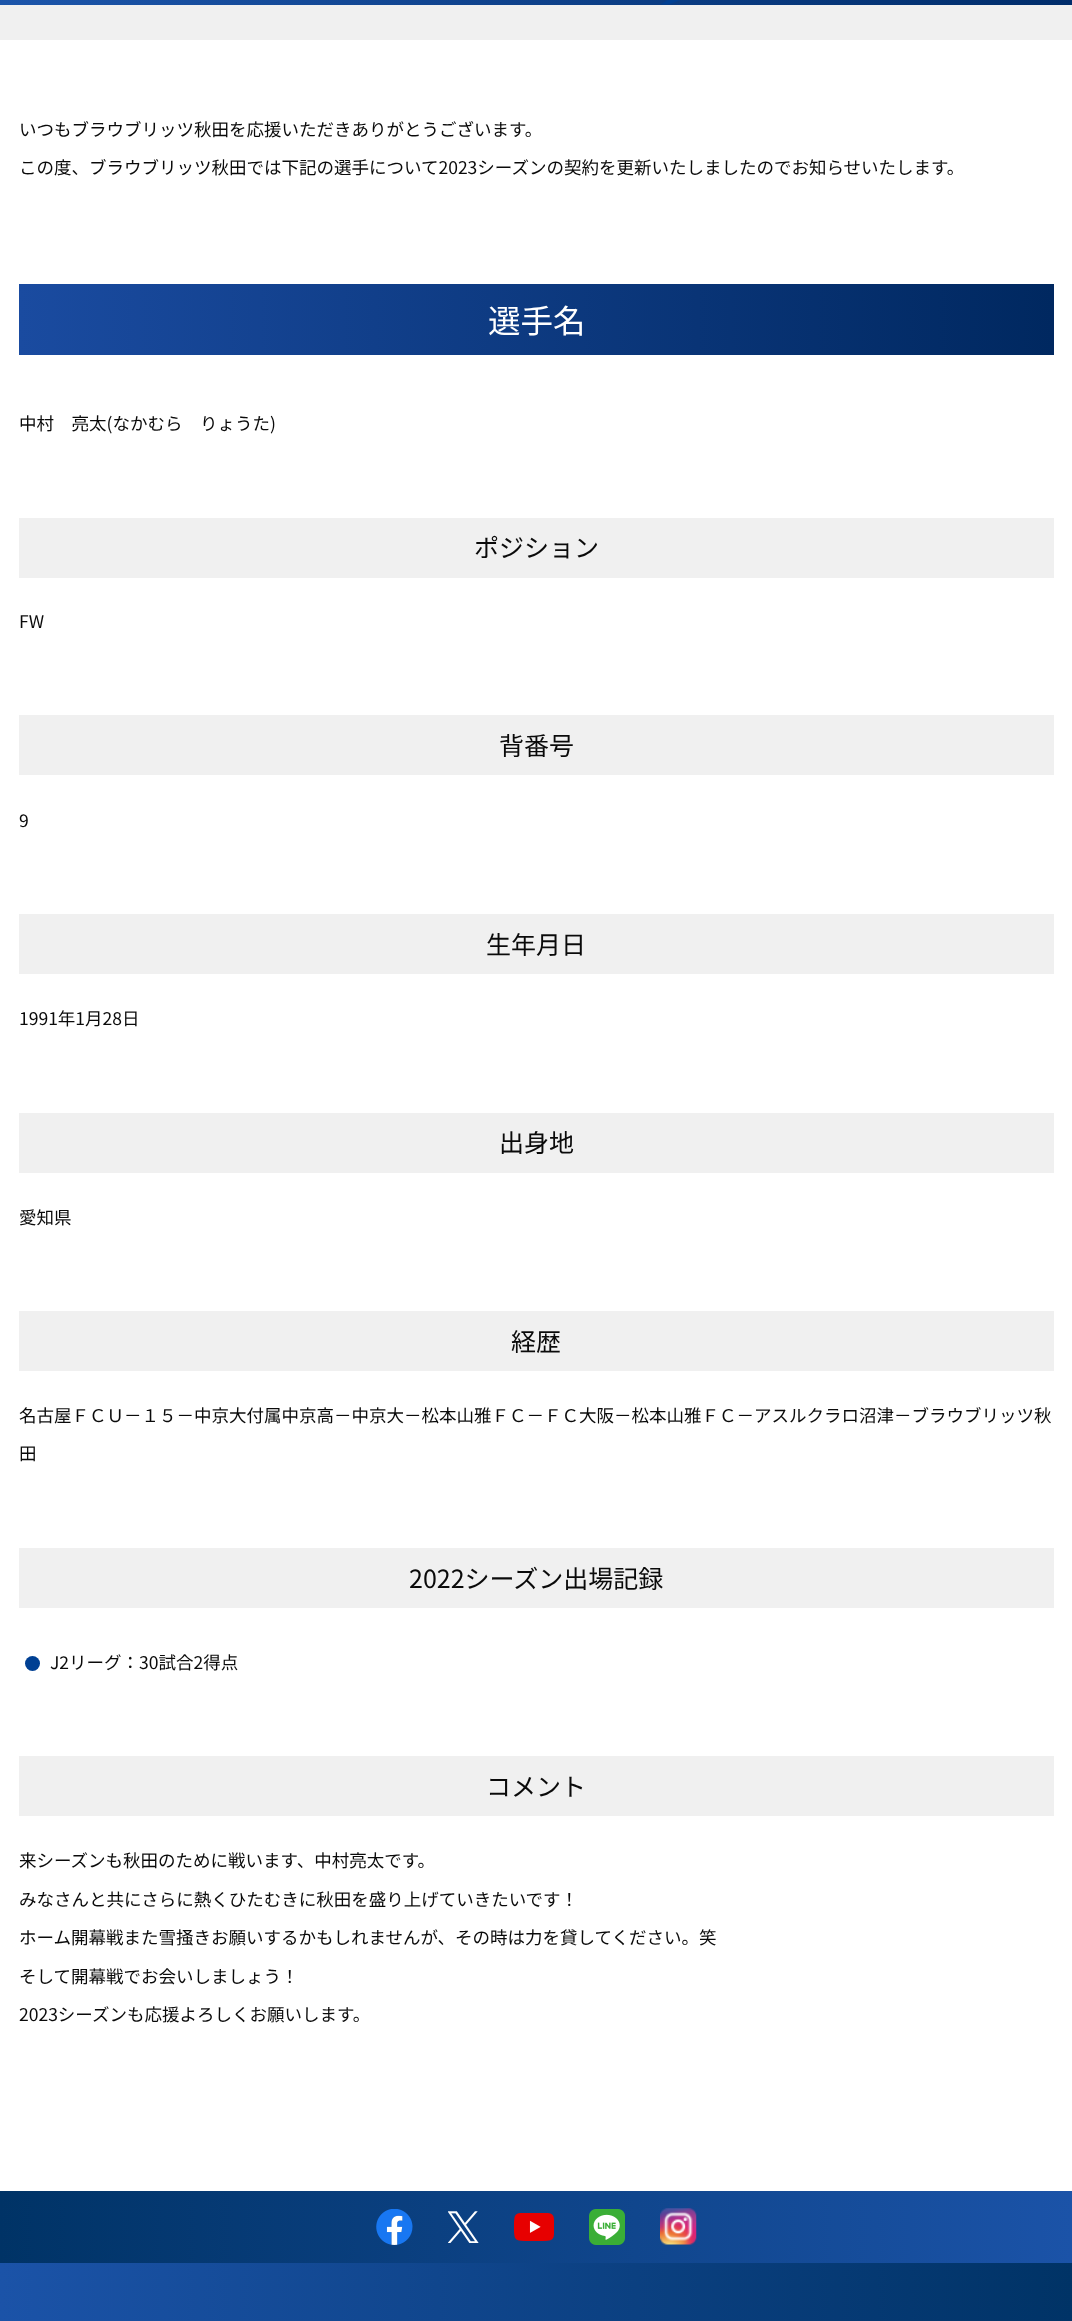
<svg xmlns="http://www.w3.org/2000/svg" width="1072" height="2321">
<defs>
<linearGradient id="g1" gradientUnits="userSpaceOnUse" x1="0" y1="-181" x2="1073" y2="-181"><stop offset="0" stop-color="#1c55aa"/><stop offset="1" stop-color="#002d6b"/></linearGradient>
<linearGradient id="g2" gradientUnits="userSpaceOnUse" x1="19" y1="319" x2="1054" y2="319"><stop offset="0" stop-color="#1a4ba0"/><stop offset="1" stop-color="#002860"/></linearGradient>
<linearGradient id="g3" gradientUnits="userSpaceOnUse" x1="0" y1="2227" x2="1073" y2="2227"><stop offset="0" stop-color="#036"/><stop offset="1" stop-color="#1b53a8"/></linearGradient>
<linearGradient id="g4" gradientUnits="userSpaceOnUse" x1="0" y1="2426" x2="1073" y2="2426"><stop offset="0" stop-color="#1b53a8"/><stop offset="1" stop-color="#036"/></linearGradient>
</defs>
<rect width="100%" height="100%" fill="#fff"/>
<rect width="1072" height="5" fill="url(#g1)"/>
<image x="661" y="0" width="19" height="5" href="media/1.png"/>
<rect y="5" width="1072" height="35" fill="#f0f0f0"/>
<text x="19" y="136" style="font-family:Noto Sans JP;font-size:17.5px;fill:#0a0a0a">いつもブラウブリッツ秋田を応援いただきありがとうございます。</text>
<text x="19" y="174" style="font-family:Noto Sans JP;font-size:17.5px;fill:#0a0a0a">この度、ブラウブリッツ秋田では下記の選手について2023シーズンの契約を更新いたしましたのでお知らせいたします。</text>
<rect x="19" y="284" width="1035" height="71" fill="url(#g2)"/>
<text x="488" y="333" style="font-family:Noto Sans JP;font-size:32.5px;fill:#fff">選手名</text>
<text x="19" y="430" style="font-family:Noto Sans JP;font-size:17.5px;fill:#0a0a0a">中村　亮太(なかむら　りょうた)</text>
<rect x="19" y="518" width="1035" height="60" fill="#f0f0f0"/>
<text x="474" y="557" style="font-family:Noto Sans JP;font-size:25px;fill:#0a0a0a">ポジション</text>
<text x="19" y="628" style="font-family:Noto Sans JP;font-size:17.5px;fill:#0a0a0a">FW</text>
<rect x="19" y="715" width="1035" height="60" fill="#f0f0f0"/>
<text x="499" y="755" style="font-family:Noto Sans JP;font-size:25px;fill:#0a0a0a">背番号</text>
<text x="19" y="827" style="font-family:Noto Sans JP;font-size:17.5px;fill:#0a0a0a">9</text>
<rect x="19" y="914" width="1035" height="60" fill="#f0f0f0"/>
<text x="486" y="954" style="font-family:Noto Sans JP;font-size:25px;fill:#0a0a0a">生年月日</text>
<text x="19" y="1025" style="font-family:Noto Sans JP;font-size:17.5px;fill:#0a0a0a">1991年1月28日</text>
<rect x="19" y="1113" width="1035" height="60" fill="#f0f0f0"/>
<text x="499" y="1152" style="font-family:Noto Sans JP;font-size:25px;fill:#0a0a0a">出身地</text>
<text x="19" y="1224" style="font-family:Noto Sans JP;font-size:17.5px;fill:#0a0a0a">愛知県</text>
<rect x="19" y="1311" width="1035" height="60" fill="#f0f0f0"/>
<text x="511" y="1351" style="font-family:Noto Sans JP;font-size:25px;fill:#0a0a0a">経歴</text>
<text x="19" y="1422" style="font-family:Noto Sans JP;font-size:17.5px;fill:#0a0a0a">名古屋ＦＣＵ－１５－中京大付属中京高－中京大－松本山雅ＦＣ－ＦＣ大阪－松本山雅ＦＣ－アスルクラロ沼津－ブラウブリッツ秋</text>
<text x="19" y="1460" style="font-family:Noto Sans JP;font-size:17.5px;fill:#0a0a0a">田</text>
<rect x="19" y="1548" width="1035" height="60" fill="#f0f0f0"/>
<text x="409" y="1588" style="font-family:Noto Sans JP;font-size:25px;fill:#0a0a0a">2022シーズン出場記録</text>
<circle cx="32.5" cy="1663.5" r="7.5" fill="#004093"/>
<text x="50" y="1669" style="font-family:Noto Sans JP;font-size:17.5px;fill:#0a0a0a">J2リーグ：30試合2得点</text>
<rect x="19" y="1756" width="1035" height="60" fill="#f0f0f0"/>
<text x="486" y="1796" style="font-family:Noto Sans JP;font-size:25px;fill:#0a0a0a">コメント</text>
<text x="19" y="1867" style="font-family:Noto Sans JP;font-size:17.5px;fill:#0a0a0a">来シーズンも秋田のために戦います、中村亮太です。</text>
<text x="19" y="1906" style="font-family:Noto Sans JP;font-size:17.5px;fill:#0a0a0a">みなさんと共にさらに熱くひたむきに秋田を盛り上げていきたいです！</text>
<text x="19" y="1944" style="font-family:Noto Sans JP;font-size:17.5px;fill:#0a0a0a">ホーム開幕戦また雪掻きお願いするかもしれませんが、その時は力を貸してください。笑</text>
<text x="19" y="1983" style="font-family:Noto Sans JP;font-size:17.5px;fill:#0a0a0a">そして開幕戦でお会いしましょう！</text>
<text x="19" y="2021" style="font-family:Noto Sans JP;font-size:17.5px;fill:#0a0a0a">2023シーズンも応援よろしくお願いします。</text>
<rect y="2191" width="1072" height="72" fill="url(#g3)"/>
<image x="376" y="2209" width="37" height="36" href="media/2.png"/>
<image x="448" y="2211" width="31" height="32" href="media/3.png"/>
<image x="514" y="2213" width="40" height="28" href="media/4.png"/>
<image x="589" y="2209" width="36" height="36" href="media/5.png"/>
<image x="660" y="2208" width="37" height="37" href="media/6.png"/>
<rect y="2263" width="1072" height="58" fill="url(#g4)"/>
</svg>
